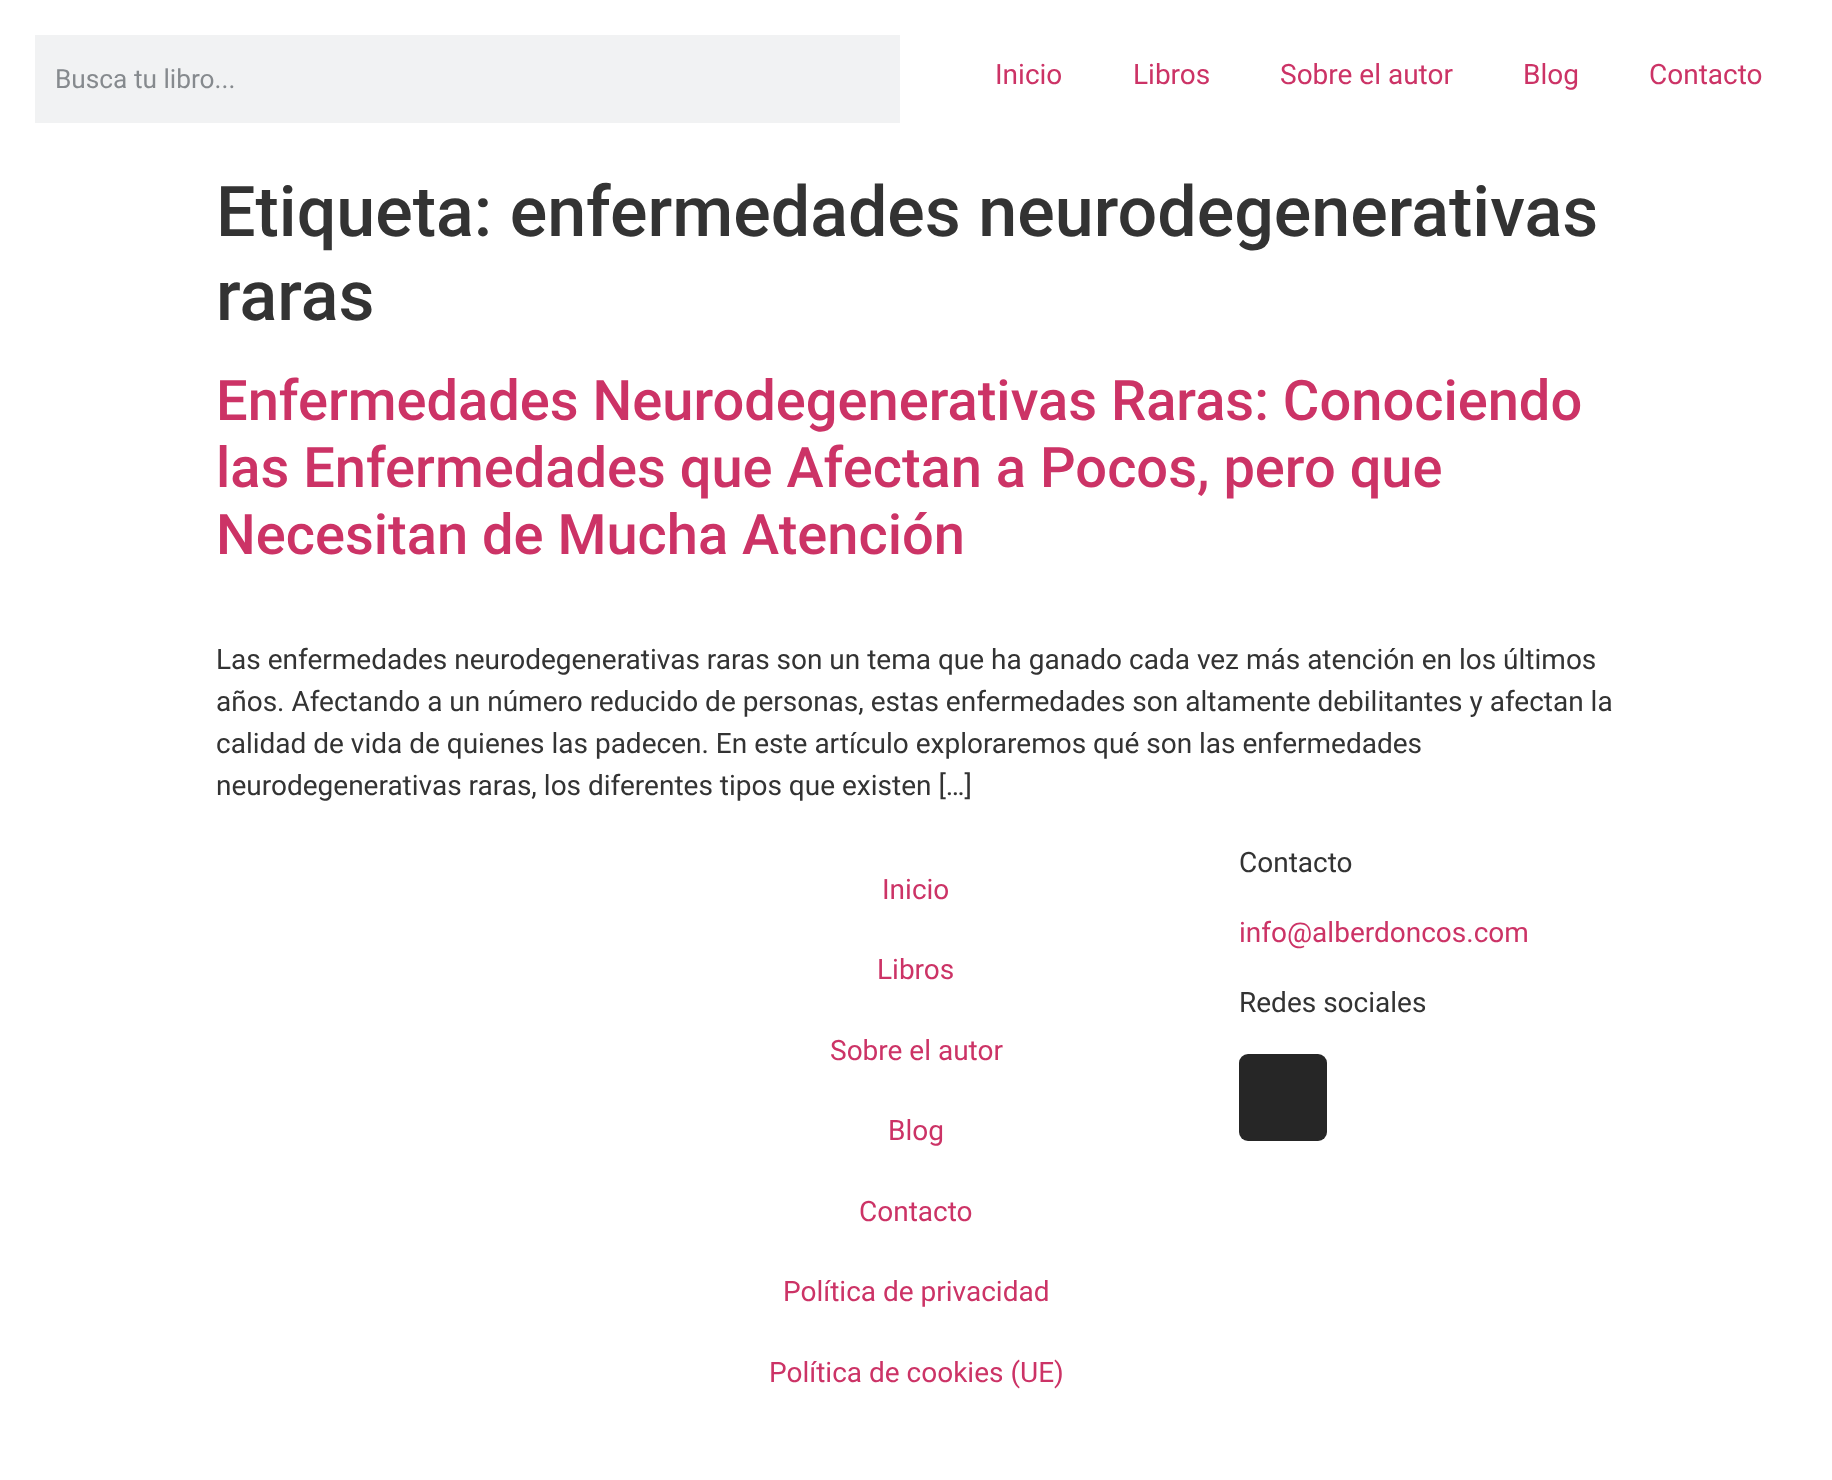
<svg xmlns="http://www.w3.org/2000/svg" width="1832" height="1480">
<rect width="100%" height="100%" fill="#fff"/>
<rect x="35" y="35" width="865" height="88" fill="#f1f2f3"/>
<text x="55" y="88" style="font-family:Roboto;font-size:26.25px;fill:#868a8e">Busca tu libro...</text>
<text x="995" y="84" style="font-family:Roboto;font-size:28px;fill:#c36">Inicio</text>
<text x="1133" y="84" style="font-family:Roboto;font-size:28px;fill:#c36">Libros</text>
<text x="1280" y="84" style="font-family:Roboto;font-size:28px;fill:#c36">Sobre el autor</text>
<text x="1523" y="84" style="font-family:Roboto;font-size:28px;fill:#c36">Blog</text>
<text x="1649" y="84" style="font-family:Roboto;font-size:28px;fill:#c36">Contacto</text>
<text x="216" y="236" style="font-family:Roboto;font-size:70px;font-weight:500;fill:#333">Etiqueta: enfermedades neurodegenerativas</text>
<text x="216" y="320" style="font-family:Roboto;font-size:70px;font-weight:500;fill:#333">raras</text>
<text x="216" y="420" style="font-family:Roboto;font-size:56px;font-weight:500;fill:#c36">Enfermedades Neurodegenerativas Raras: Conociendo</text>
<text x="216" y="487" style="font-family:Roboto;font-size:56px;font-weight:500;fill:#c36">las Enfermedades que Afectan a Pocos, pero que</text>
<text x="216" y="554" style="font-family:Roboto;font-size:56px;font-weight:500;fill:#c36">Necesitan de Mucha Atención</text>
<text x="216" y="669" style="font-family:Roboto;font-size:28px;fill:#333">Las enfermedades neurodegenerativas raras son un tema que ha ganado cada vez más atención en los últimos</text>
<text x="216" y="711" style="font-family:Roboto;font-size:28px;fill:#333">años. Afectando a un número reducido de personas, estas enfermedades son altamente debilitantes y afectan la</text>
<text x="216" y="753" style="font-family:Roboto;font-size:28px;fill:#333">calidad de vida de quienes las padecen. En este artículo exploraremos qué son las enfermedades</text>
<text x="216" y="795" style="font-family:Roboto;font-size:28px;fill:#333">neurodegenerativas raras, los diferentes tipos que existen […]</text>
<text x="882" y="899" style="font-family:Roboto;font-size:28px;fill:#c36">Inicio</text>
<text x="877" y="979" style="font-family:Roboto;font-size:28px;fill:#c36">Libros</text>
<text x="830" y="1060" style="font-family:Roboto;font-size:28px;fill:#c36">Sobre el autor</text>
<text x="888" y="1140" style="font-family:Roboto;font-size:28px;fill:#c36">Blog</text>
<text x="859" y="1221" style="font-family:Roboto;font-size:28px;fill:#c36">Contacto</text>
<text x="783" y="1301" style="font-family:Roboto;font-size:28px;fill:#c36">Política de privacidad</text>
<text x="769" y="1382" style="font-family:Roboto;font-size:28px;fill:#c36">Política de cookies (UE)</text>
<text x="1239" y="872" style="font-family:Roboto;font-size:28px;fill:#333">Contacto</text>
<text x="1239" y="942" style="font-family:Roboto;font-size:28px;fill:#c36">info@alberdoncos.com</text>
<text x="1239" y="1012" style="font-family:Roboto;font-size:28px;fill:#333">Redes sociales</text>
<rect x="1239" y="1054" width="88" height="87" rx="9" fill="#262626"/>
</svg>
